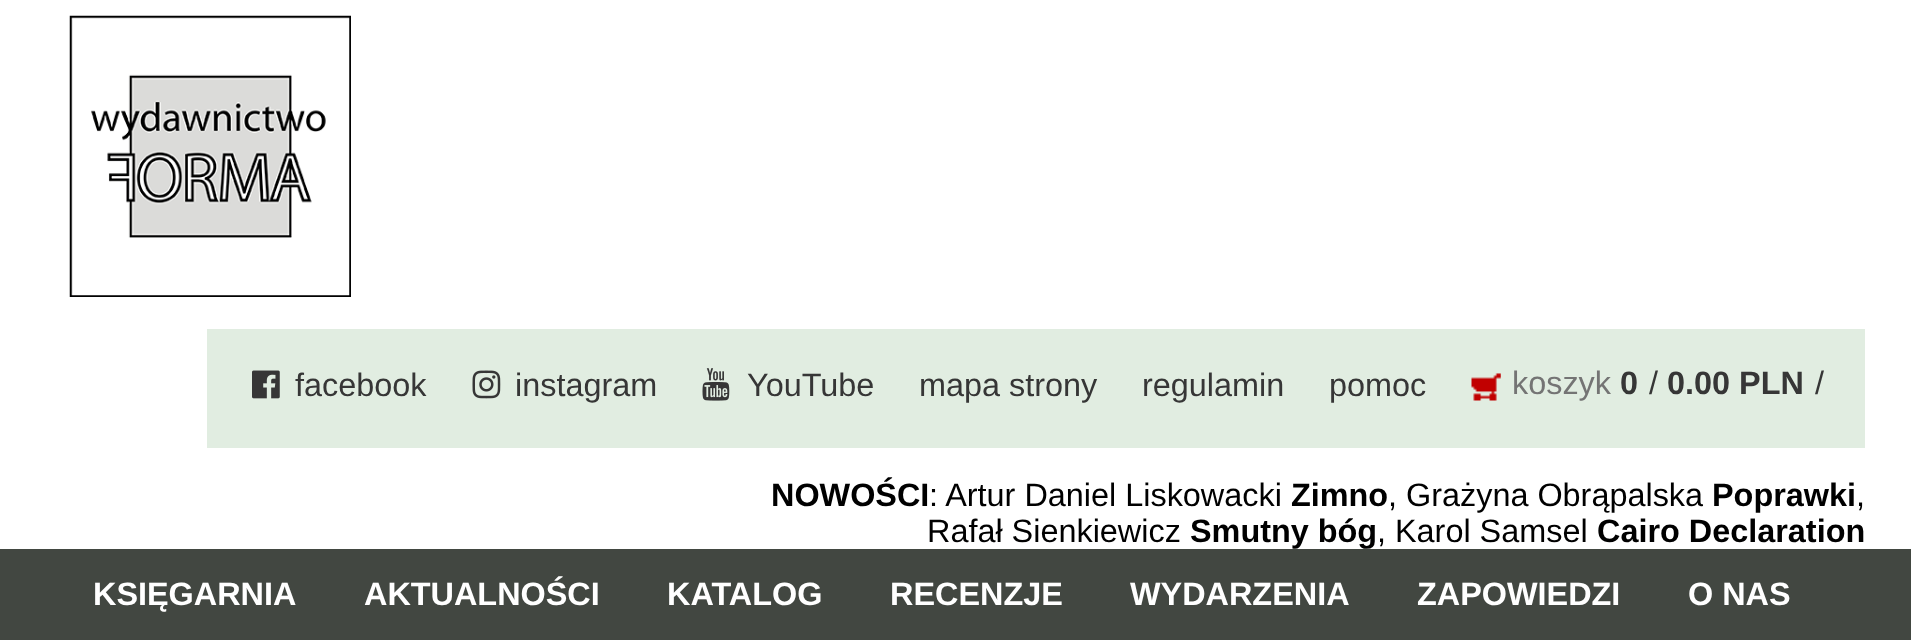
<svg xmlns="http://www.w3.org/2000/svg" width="1911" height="640">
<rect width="100%" height="100%" fill="#fff"/>
<image x="69" y="15" width="282" height="282" href="media/1.png"/>
<rect x="207" y="329" width="1658" height="119" fill="#e1ede1"/>
<image x="252" y="370" width="28" height="29" href="media/2.png"/>
<text x="295" y="396" style="font-family:Liberation Sans;font-size:32.4px;fill:#363636">facebook</text>
<image x="472" y="370" width="29" height="29" href="media/3.png"/>
<text x="515" y="396" style="font-family:Liberation Sans;font-size:32.4px;fill:#363636">instagram</text>
<image x="702" y="368" width="28" height="33" href="media/4.png"/>
<text x="747" y="396" style="font-family:Liberation Sans;font-size:32.4px;fill:#363636">YouTube</text>
<text x="919" y="396" style="font-family:Liberation Sans;font-size:32.4px;fill:#363636">mapa strony</text>
<text x="1142" y="396" style="font-family:Liberation Sans;font-size:32.4px;fill:#363636">regulamin</text>
<text x="1329" y="396" style="font-family:Liberation Sans;font-size:32.4px;fill:#363636">pomoc</text>
<image x="1471" y="373" width="30" height="28" href="media/5.png"/>
<text x="1512" y="394" style="font-family:Liberation Sans;font-size:32.4px;fill:#747474">koszyk</text>
<text x="1620" y="394" style="font-family:Liberation Sans;font-size:32.4px;font-weight:bold;fill:#363636">0</text>
<text x="1649" y="394" style="font-family:Liberation Sans;font-size:32.4px;fill:#363636">/</text>
<text x="1667" y="394" style="font-family:Liberation Sans;font-size:32.4px;font-weight:bold;fill:#363636">0.00 PLN</text>
<text x="1815" y="394" style="font-family:Liberation Sans;font-size:32.4px;fill:#363636">/</text>
<text x="771" y="506" style="font-family:Liberation Sans;font-size:32.4px;font-weight:bold;fill:#000">NOWOŚCI</text>
<text x="929" y="506" style="font-family:Liberation Sans;font-size:32.4px;fill:#000">: Artur Daniel Liskowacki</text>
<text x="1291" y="506" style="font-family:Liberation Sans;font-size:32.4px;font-weight:bold;fill:#000">Zimno</text>
<text x="1388" y="506" style="font-family:Liberation Sans;font-size:32.4px;fill:#000">, Grażyna Obrąpalska</text>
<text x="1712" y="506" style="font-family:Liberation Sans;font-size:32.4px;font-weight:bold;fill:#000">Poprawki</text>
<text x="1856" y="506" style="font-family:Liberation Sans;font-size:32.4px;fill:#000">,</text>
<text x="927" y="542" style="font-family:Liberation Sans;font-size:32.4px;fill:#000">Rafał Sienkiewicz</text>
<text x="1190" y="542" style="font-family:Liberation Sans;font-size:32.4px;font-weight:bold;fill:#000">Smutny bóg</text>
<text x="1377" y="542" style="font-family:Liberation Sans;font-size:32.4px;fill:#000">, Karol Samsel</text>
<text x="1597" y="542" style="font-family:Liberation Sans;font-size:32.4px;font-weight:bold;fill:#000">Cairo Declaration</text>
<rect y="549" width="1911" height="91" fill="#424741"/>
<text x="93" y="605" style="font-family:Liberation Sans;font-size:32.4px;font-weight:bold;fill:#fff">KSIĘGARNIA</text>
<text x="364" y="605" style="font-family:Liberation Sans;font-size:32.4px;font-weight:bold;fill:#fff">AKTUALNOŚCI</text>
<text x="667" y="605" style="font-family:Liberation Sans;font-size:32.4px;font-weight:bold;fill:#fff">KATALOG</text>
<text x="890" y="605" style="font-family:Liberation Sans;font-size:32.4px;font-weight:bold;fill:#fff">RECENZJE</text>
<text x="1130" y="605" style="font-family:Liberation Sans;font-size:32.4px;font-weight:bold;fill:#fff">WYDARZENIA</text>
<text x="1417" y="605" style="font-family:Liberation Sans;font-size:32.4px;font-weight:bold;fill:#fff">ZAPOWIEDZI</text>
<text x="1688" y="605" style="font-family:Liberation Sans;font-size:32.4px;font-weight:bold;fill:#fff">O NAS</text>
</svg>
